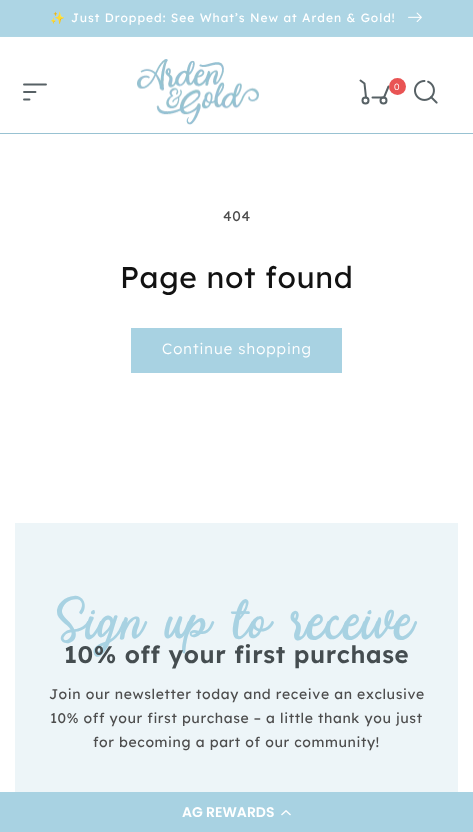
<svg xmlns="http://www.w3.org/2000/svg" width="473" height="832">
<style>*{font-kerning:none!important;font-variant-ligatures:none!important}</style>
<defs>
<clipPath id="clip1"><rect x="359" y="79" width="30" height="26"/></clipPath>
</defs>
<rect width="100%" height="100%" fill="#fff"/>
<rect y="36" width="473" height="1" fill="#afd6e4"/>
<rect width="473" height="36" fill="#add5e4"/>
<text x="50" y="22" style="font-family:Noto Color Emoji;font-size:12px;letter-spacing:1px;fill:#fff">✨</text>
<text x="71" y="22" style="font-family:Lexend;font-size:12px;letter-spacing:1px;fill:#fff">Just Dropped: See What’s New at Arden &amp; Gold!</text>
<image x="408" y="12" width="14" height="10" href="media/1.png"/>
<rect y="133" width="473" height="1" fill="#98c2d2"/>
<path d="M24 84.5h22m-22 7.5h11.5m-11.5 7.5h5.5" fill="none" stroke="#576165" stroke-width="1.9" stroke-linecap="round"/>
<image x="137" y="59" width="122" height="66" href="media/2.png"/>
<path d="M366 97.5l-1.5-14l-4-3" fill="none" stroke="#576165" stroke-width="2" stroke-linecap="round"/>
<g clip-path="url(#clip1)">
<path d="M388.5 86.5l-4.5 11h-11.5" fill="none" stroke="#576165" stroke-width="2" stroke-linecap="round"/>
</g>
<circle cx="365.5" cy="100.5" r="3" fill="none" stroke="#576165" stroke-width="2"/>
<circle cx="383.5" cy="100.5" r="3" fill="none" stroke="#576165" stroke-width="2"/>
<circle cx="397.5" cy="86.5" r="8.5" fill="#e95454"/>
<text x="394" y="90" style="font-family:Lexend;font-size:9px;font-weight:300;letter-spacing:0.6px;fill:#fff">0</text>
<image x="414" y="80" width="24" height="24" href="media/3.png"/>
<text x="223" y="221" style="font-family:Lexend;font-size:14px;letter-spacing:0.6px;fill:#4d4d4d">404</text>
<text x="120" y="288" style="font-family:Lexend;font-size:30px;letter-spacing:0.6px;fill:#121212">Page not found</text>
<rect x="131" y="328" width="211" height="45" fill="#a8d2e2"/>
<text x="162" y="354" style="font-family:Lexend;font-size:15px;font-weight:300;letter-spacing:1px;fill:#fff">Continue shopping</text>
<rect x="15" y="523" width="443" height="269" fill="#edf5f8"/>
<text x="57" y="643" style="font-family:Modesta;font-size:60px;letter-spacing:0.6px;fill:#a8d2e2">Sign up to receive</text>
<text x="64" y="663" style="font-family:Lexend;font-size:24px;font-weight:600;letter-spacing:0.6px;fill:#454d50">10% off your first purchase</text>
<text x="49" y="699" style="font-family:Lexend;font-size:14px;letter-spacing:0.6px;fill:#4d4d4d">Join our newsletter today and receive an exclusive</text>
<text x="50" y="723" style="font-family:Lexend;font-size:14px;letter-spacing:0.6px;fill:#4d4d4d">10% off your first purchase – a little thank you just</text>
<text x="93" y="747" style="font-family:Lexend;font-size:14px;letter-spacing:0.6px;fill:#4d4d4d">for becoming a part of our community!</text>
<rect y="792" width="473" height="40" fill="#a8d2e2"/>
<text x="182" y="817" style="font-family:Poppins;font-size:14px;font-weight:600;fill:#fff">AG REWARDS</text>
<image x="281" y="810" width="10" height="6" href="media/4.png"/>
</svg>
